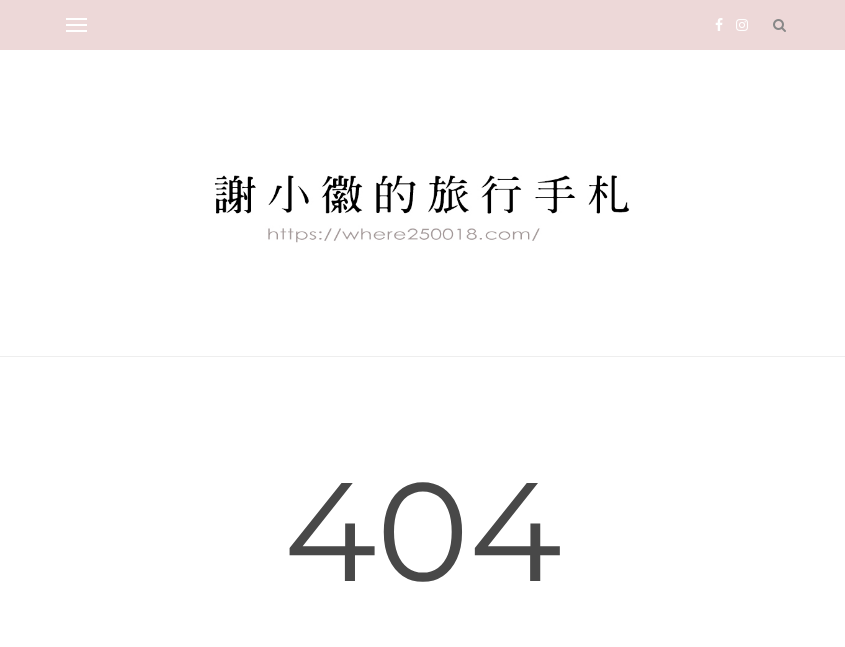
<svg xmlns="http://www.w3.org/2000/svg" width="845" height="647">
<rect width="100%" height="100%" fill="#fff"/>
<rect width="845" height="50" fill="#edd8d8"/>
<rect x="66" y="18" width="21" height="2" fill="#fff"/>
<rect x="66" y="24" width="21" height="2" fill="#fff"/>
<rect x="66" y="30" width="21" height="2" fill="#fff"/>
<image x="715" y="18" width="8" height="13" href="media/1.png"/>
<image x="736" y="19" width="12" height="12" href="media/2.png"/>
<image x="773" y="19" width="13" height="13" href="media/3.png"/>
<rect y="356" width="845" height="1" fill="#eee"/>
<image x="214" y="175" width="416" height="68" href="media/4.png"/>
<text x="284" y="581" style="font-family:Montserrat;font-size:140px;fill:#484848">404</text>
</svg>
